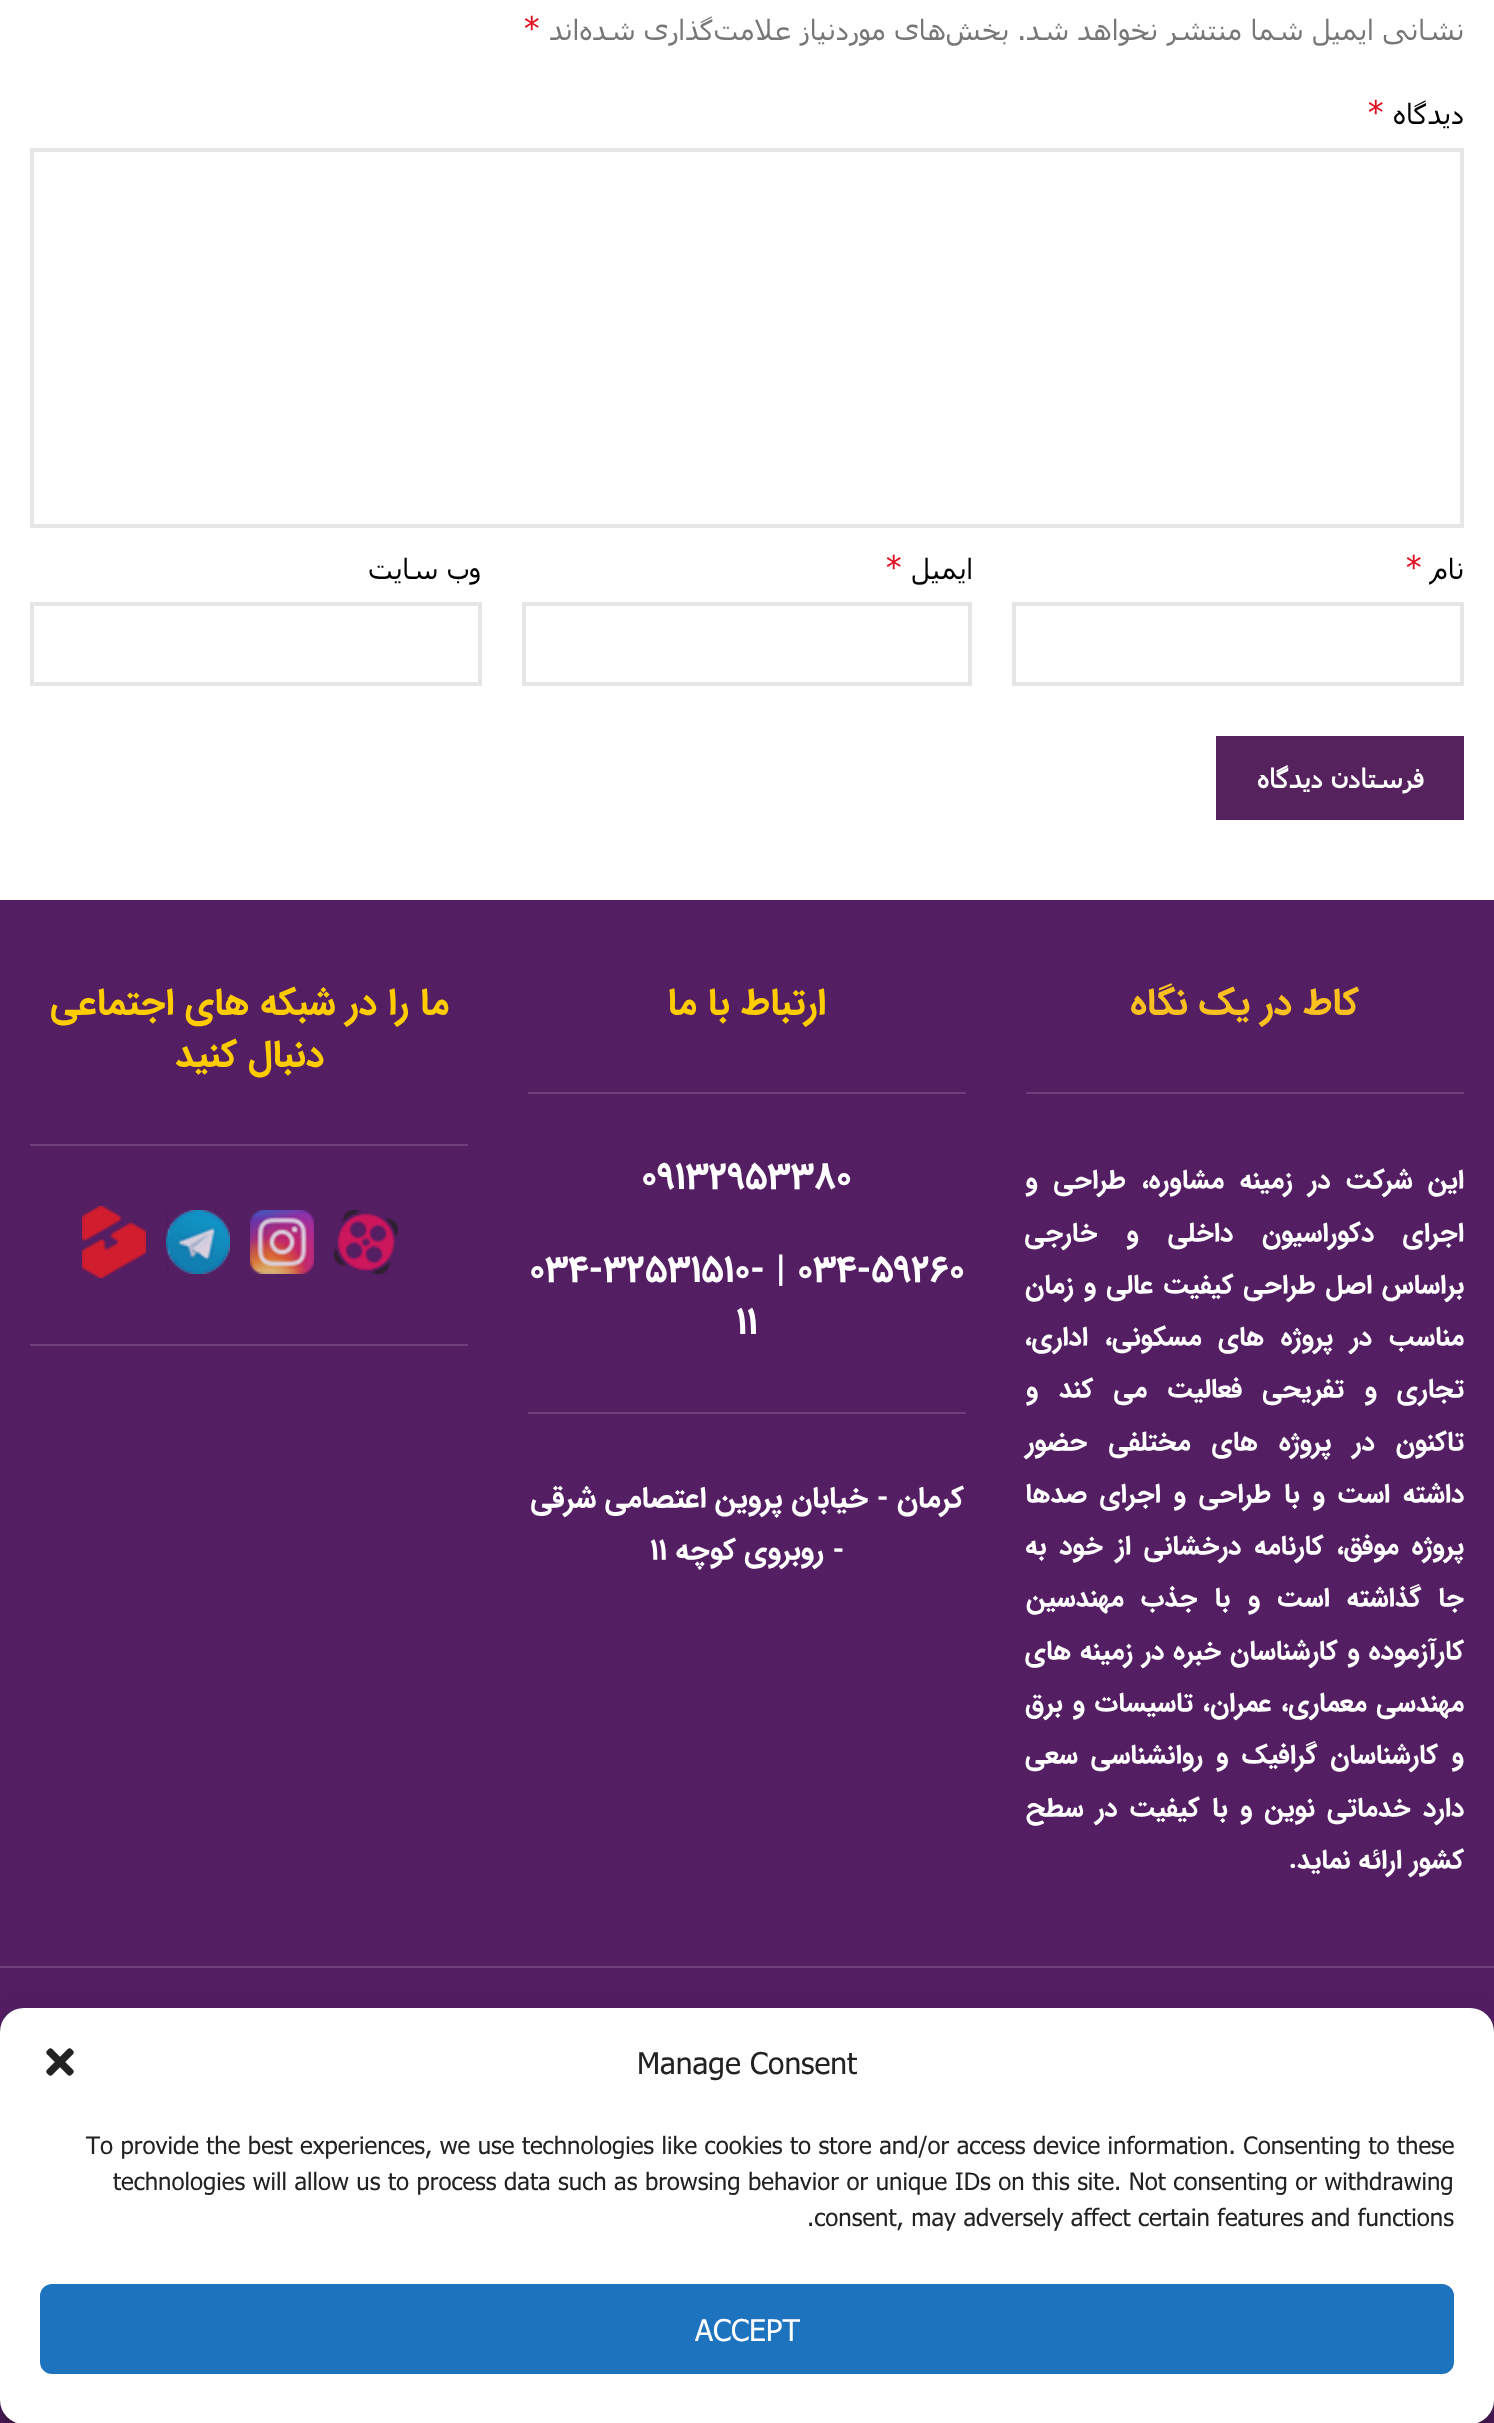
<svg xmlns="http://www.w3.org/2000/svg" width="1494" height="2423">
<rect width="100%" height="100%" fill="#fff"/>
<text x="1464" y="40" style="font-family:Tahoma;font-size:28px;direction:rtl;fill:#777">نشانی ایمیل شما منتشر نخواهد شد.</text>
<text x="1009" y="40" style="font-family:Tahoma;font-size:28px;direction:rtl;fill:#777">بخش‌های موردنیاز علامت‌گذاری شده‌اند</text>
<text x="523" y="40" style="font-family:Tahoma;font-size:32px;fill:#e01020">*</text>
<text x="1464" y="124" style="font-family:Tahoma;font-size:28px;direction:rtl;fill:#000">دیدگاه</text>
<text x="1367" y="124" style="font-family:Tahoma;font-size:32px;fill:#e01020">*</text>
<rect x="32" y="150" width="1430" height="376" fill="none" stroke="#e6e6e6" stroke-width="4"/>
<text x="1464" y="579" style="font-family:Tahoma;font-size:28px;direction:rtl;fill:#000">نام</text>
<text x="1405" y="579" style="font-family:Tahoma;font-size:32px;fill:#e01020">*</text>
<rect x="1014" y="604" width="448" height="80" fill="none" stroke="#e6e6e6" stroke-width="4"/>
<text x="973" y="579" style="font-family:Tahoma;font-size:28px;direction:rtl;fill:#000">ایمیل</text>
<text x="885" y="579" style="font-family:Tahoma;font-size:32px;fill:#e01020">*</text>
<rect x="524" y="604" width="446" height="80" fill="none" stroke="#e6e6e6" stroke-width="4"/>
<text x="481" y="579" style="font-family:Tahoma;font-size:28px;direction:rtl;fill:#000">وب‌ سایت</text>
<rect x="32" y="604" width="448" height="80" fill="none" stroke="#e6e6e6" stroke-width="4"/>
<rect x="1216" y="736" width="248" height="84" fill="#55225d"/>
<text x="1424" y="788" style="font-family:Tahoma;font-size:26px;font-weight:bold;direction:rtl;fill:#fff">فرستادن دیدگاه</text>
<rect y="900" width="1494" height="1523" fill="#541e63"/>
<rect x="1026" y="1092" width="438" height="2" fill="#6e407a"/>
<text x="1359" y="1014" style="font-family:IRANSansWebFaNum;font-size:37.25px;font-weight:bold;direction:rtl;fill:#fac020">کاط در یک نگاه</text>
<text x="1464" y="1188" word-spacing="7.75" style="font-family:IRANSansWebFaNum;font-size:26.7px;font-weight:bold;direction:rtl;fill:#fff">این شرکت در زمینه مشاوره، طراحی و</text>
<text x="1464" y="1241" word-spacing="21" style="font-family:IRANSansWebFaNum;font-size:26.7px;font-weight:bold;direction:rtl;fill:#fff">اجرای دکوراسیون داخلی و خارجی</text>
<text x="1464" y="1293" word-spacing="2" style="font-family:IRANSansWebFaNum;font-size:26.7px;font-weight:bold;direction:rtl;fill:#fff">براساس اصل طراحی کیفیت عالی و زمان</text>
<text x="1464" y="1345" word-spacing="9" style="font-family:IRANSansWebFaNum;font-size:26.7px;font-weight:bold;direction:rtl;fill:#fff">مناسب در پروژه های مسکونی، اداری،</text>
<text x="1464" y="1397" word-spacing="12.25" style="font-family:IRANSansWebFaNum;font-size:26.7px;font-weight:bold;direction:rtl;fill:#fff">تجاری و تفریحی فعالیت می کند و</text>
<text x="1464" y="1450" word-spacing="13.5" style="font-family:IRANSansWebFaNum;font-size:26.7px;font-weight:bold;direction:rtl;fill:#fff">تاکنون در پروژه های مختلفی حضور</text>
<text x="1464" y="1502" word-spacing="4.75" style="font-family:IRANSansWebFaNum;font-size:26.7px;font-weight:bold;direction:rtl;fill:#fff">داشته است و با طراحی و اجرای صدها</text>
<text x="1464" y="1554" word-spacing="5" style="font-family:IRANSansWebFaNum;font-size:26.7px;font-weight:bold;direction:rtl;fill:#fff">پروژه موفق، کارنامه درخشانی از خود به</text>
<text x="1464" y="1606" word-spacing="9" style="font-family:IRANSansWebFaNum;font-size:26.7px;font-weight:bold;direction:rtl;fill:#fff">جا گذاشته است و</text>
<text x="1230" y="1606" word-spacing="9" style="font-family:IRANSansWebFaNum;font-size:26.7px;font-weight:bold;direction:rtl;fill:#fff">با جذب مهندسین</text>
<text x="1464" y="1659" word-spacing="1.25" style="font-family:IRANSansWebFaNum;font-size:26.7px;font-weight:bold;direction:rtl;fill:#fff">کارآزموده و کارشناسان خبره در زمینه های</text>
<text x="1464" y="1711" word-spacing="1.75" style="font-family:IRANSansWebFaNum;font-size:26.7px;font-weight:bold;direction:rtl;fill:#fff">مهندسی معماری، عمران، تاسیسات و برق</text>
<text x="1464" y="1763" word-spacing="5.25" style="font-family:IRANSansWebFaNum;font-size:26.7px;font-weight:bold;direction:rtl;fill:#fff">و کارشناسان گرافیک و روانشناسی سعی</text>
<text x="1464" y="1816" word-spacing="4.25" style="font-family:IRANSansWebFaNum;font-size:26.7px;font-weight:bold;direction:rtl;fill:#fff">دارد خدماتی نوین و با کیفیت در سطح</text>
<text x="1464" y="1868" style="font-family:IRANSansWebFaNum;font-size:26.7px;font-weight:bold;direction:rtl;fill:#fff">کشور ارائه نماید.</text>
<rect x="528" y="1092" width="438" height="2" fill="#6e407a"/>
<text x="826" y="1014" style="font-family:IRANSansWebFaNum;font-size:37.25px;font-weight:bold;direction:rtl;fill:#fc0">ارتباط با ما</text>
<rect x="528" y="1412" width="438" height="2" fill="#6e407a"/>
<text x="641" y="1188" style="font-family:IRANSansWebFaNum;font-size:37.25px;font-weight:bold;fill:#fff">09132953380</text>
<text x="797" y="1281" style="font-family:IRANSansWebFaNum;font-size:37.25px;font-weight:bold;fill:#fff">034-59260</text>
<text x="776" y="1281" style="font-family:IRANSansWebFaNum;font-size:37.25px;font-weight:bold;fill:#fff">|</text>
<text x="529" y="1281" style="font-family:IRANSansWebFaNum;font-size:37.25px;font-weight:bold;fill:#fff">034-32531510-</text>
<text x="736" y="1333" style="font-family:IRANSansWebFaNum;font-size:37.25px;font-weight:bold;fill:#fff">11</text>
<text x="964" y="1507" style="font-family:IRANSansWebFaNum;font-size:29.3px;font-weight:bold;direction:rtl;fill:#fff">کرمان - خیابان پروین اعتصامی شرقی</text>
<text x="844" y="1559" style="font-family:IRANSansWebFaNum;font-size:29.3px;font-weight:bold;direction:rtl;fill:#fff">- روبروی کوچه</text>
<text x="650" y="1559" style="font-family:IRANSansWebFaNum;font-size:29.3px;font-weight:bold;fill:#fff">11</text>
<rect x="30" y="1144" width="438" height="2" fill="#6e407a"/>
<text x="449" y="1014" style="font-family:IRANSansWebFaNum;font-size:37.25px;font-weight:bold;direction:rtl;fill:#fc0">ما را در شبکه های اجتماعی</text>
<text x="324" y="1066" style="font-family:IRANSansWebFaNum;font-size:37.25px;font-weight:bold;direction:rtl;fill:#fc0">دنبال کنید</text>
<rect x="30" y="1344" width="438" height="2" fill="#6e407a"/>
<image x="334" y="1210" width="64" height="64" href="media/1.png"/>
<image x="250" y="1210" width="64" height="64" href="media/2.png"/>
<image x="166" y="1210" width="64" height="64" href="media/3.png"/>
<image x="82" y="1206" width="64" height="72" href="media/4.png"/>
<rect y="1966" width="1494" height="2" fill="#6e407a"/>
<rect y="2020" width="1494" height="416" rx="24" fill="#0000003b" filter="blur(6px)"/>
<rect y="2028" width="1494" height="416" rx="24" fill="#00000030" filter="blur(20px)"/>
<rect y="2008" width="1494" height="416" rx="24" fill="#fff"/>
<text x="637" y="2074" style="font-family:Tahoma;font-size:30px;fill:#222">Manage Consent</text>
<image x="46" y="2048" width="28" height="28" href="media/5.png"/>
<text x="86" y="2154" style="font-family:Tahoma;font-size:24px;fill:#222">To provide the best experiences, we use technologies like cookies to store and/or access device information. Consenting to these</text>
<text x="113" y="2190" style="font-family:Tahoma;font-size:24px;fill:#222">technologies will allow us to process data such as browsing behavior or unique IDs on this site. Not consenting or withdrawing</text>
<text x="807" y="2226" style="font-family:Tahoma;font-size:24px;fill:#222">.consent, may adversely affect certain features and functions</text>
<rect x="41" y="2285" width="1412" height="88" rx="11" fill="#1e73be" stroke="#1e73be" stroke-width="2"/>
<text x="695" y="2341" style="font-family:Tahoma;font-size:30px;fill:#fff">ACCEPT</text>
</svg>
